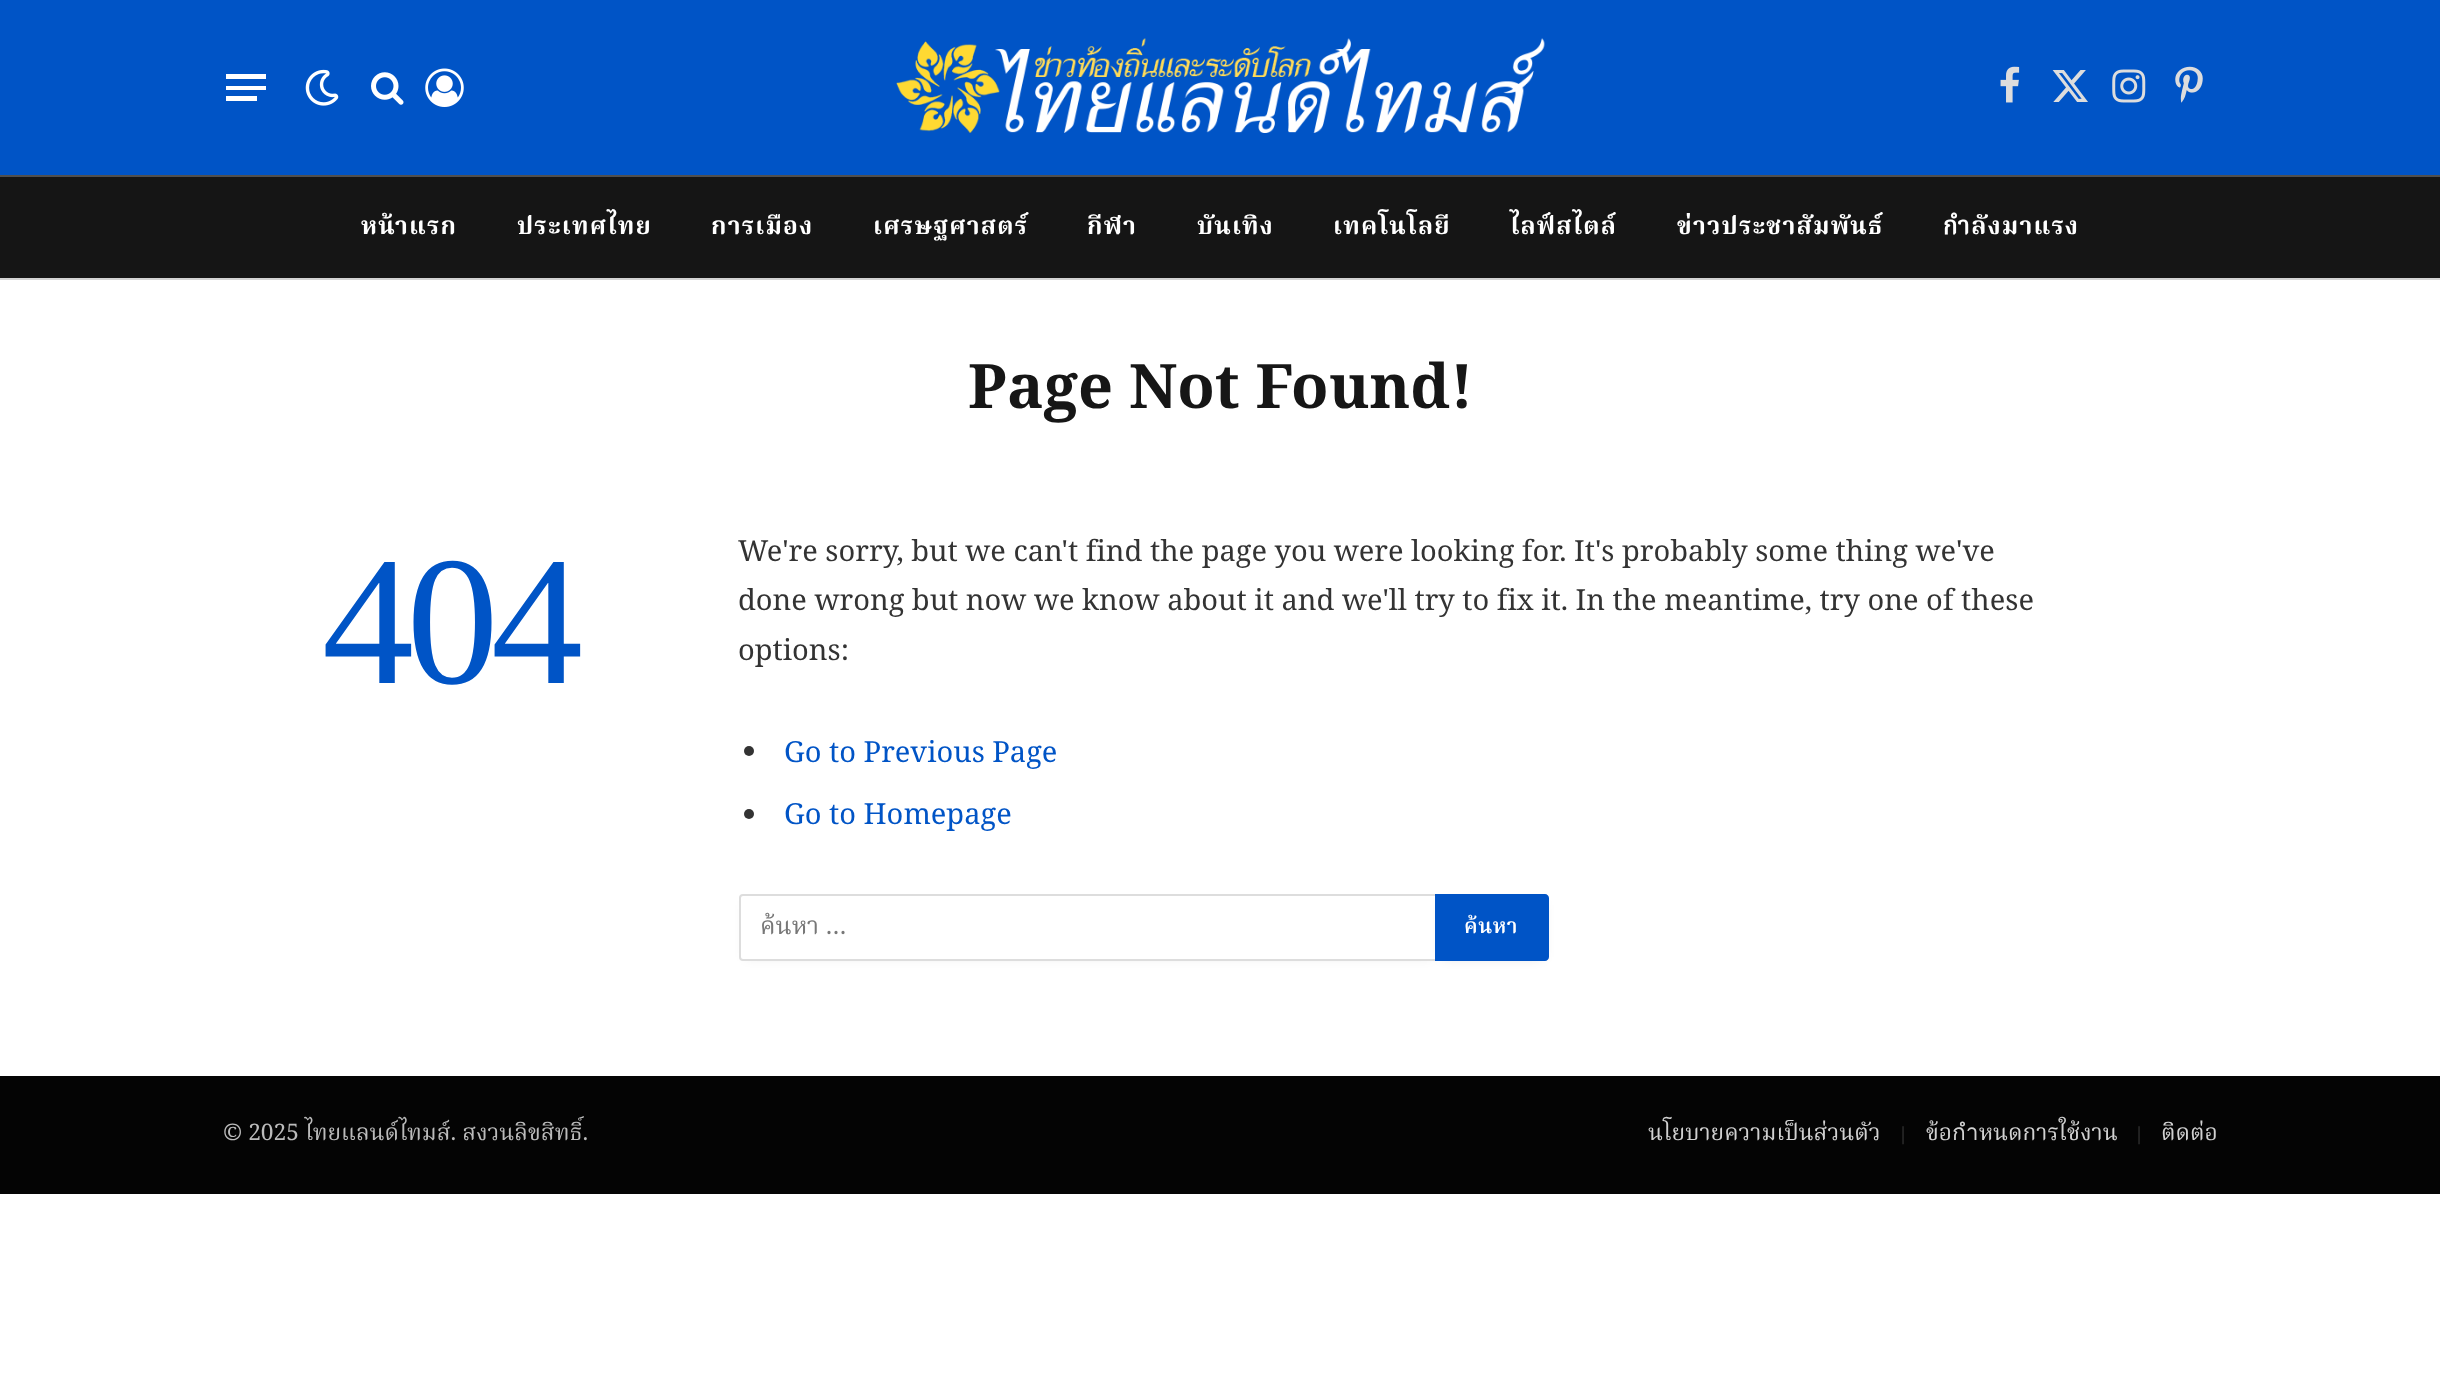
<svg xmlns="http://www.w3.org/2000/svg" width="2440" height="1383">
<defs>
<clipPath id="clip1"><rect x="761" y="908" width="648" height="39"/></clipPath>
</defs>
<rect width="100%" height="100%" fill="#fff"/>
<rect width="2440" height="175" fill="#0054c6"/>
<rect x="226" y="96" width="31" height="5" fill="#fff"/>
<rect x="226" y="74" width="40" height="5" fill="#fff"/>
<rect x="226" y="86" width="40" height="4" fill="#fff"/>
<image x="305" y="69" width="34" height="37" href="media/1.png"/>
<image x="371" y="72" width="33" height="33" href="media/2.png"/>
<image x="425" y="68" width="39" height="39" href="media/3.png"/>
<image x="896" y="38" width="649" height="95" href="media/4.png"/>
<image x="2000" y="66" width="20" height="37" href="media/5.png"/>
<image x="2052" y="70" width="36" height="32" href="media/6.png"/>
<image x="2112" y="69" width="34" height="34" href="media/7.png"/>
<image x="2175" y="66" width="28" height="37" href="media/8.png"/>
<rect y="177" width="2440" height="101" fill="#151515"/>
<rect y="175" width="2440" height="2" fill="#4f4f4f"/>
<rect y="278" width="2440" height="2" fill="#d3d3d3"/>
<text x="361" y="234" style="font-family:Noto Serif Thai;font-size:24.5px;font-weight:bold;letter-spacing:1.25px;fill:#fff">หน้าแรก</text>
<text x="517" y="234" style="font-family:Noto Serif Thai;font-size:24.5px;font-weight:bold;letter-spacing:1.25px;fill:#fff">ประเทศไทย</text>
<text x="711" y="234" style="font-family:Noto Serif Thai;font-size:24.5px;font-weight:bold;letter-spacing:1.25px;fill:#fff">การเมือง</text>
<text x="873" y="234" style="font-family:Noto Serif Thai;font-size:24.5px;font-weight:bold;letter-spacing:1.25px;fill:#fff">เศรษฐศาสตร์</text>
<text x="1087" y="234" style="font-family:Noto Serif Thai;font-size:24.5px;font-weight:bold;letter-spacing:1.25px;fill:#fff">กีฬา</text>
<text x="1197" y="234" style="font-family:Noto Serif Thai;font-size:24.5px;font-weight:bold;letter-spacing:1.25px;fill:#fff">บันเทิง</text>
<text x="1333" y="234" style="font-family:Noto Serif Thai;font-size:24.5px;font-weight:bold;letter-spacing:1.25px;fill:#fff">เทคโนโลยี</text>
<text x="1510" y="234" style="font-family:Noto Serif Thai;font-size:24.5px;font-weight:bold;letter-spacing:1.25px;fill:#fff">ไลฟ์สไตล์</text>
<text x="1677" y="234" style="font-family:Noto Serif Thai;font-size:24.5px;font-weight:bold;letter-spacing:1.25px;fill:#fff">ข่าวประชาสัมพันธ์</text>
<text x="1943" y="234" style="font-family:Noto Serif Thai;font-size:24.5px;font-weight:bold;letter-spacing:1.25px;fill:#fff">กำลังมาแรง</text>
<text x="968" y="408" style="font-family:Noto Serif Thai;font-size:61.25px;font-weight:bold;fill:#161616">Page Not Found!</text>
<text x="322" y="683" style="font-family:Liberation Serif;font-size:184px;letter-spacing:-7.5px;fill:#0054c6">404</text>
<text x="738" y="561" style="font-family:Noto Serif Thai;font-size:29.05px;fill:#333">We're sorry, but we can't find the page you were looking for. It's probably some thing we've</text>
<text x="738" y="610" style="font-family:Noto Serif Thai;font-size:29.05px;fill:#333">done wrong but now we know about it and we'll try to fix it. In the meantime, try one of these</text>
<text x="738" y="660" style="font-family:Noto Serif Thai;font-size:29.05px;fill:#333">options:</text>
<circle cx="749" cy="751" r="5" fill="#333"/>
<text x="784" y="762" style="font-family:Noto Serif Thai;font-size:29.05px;fill:#0054c6">Go to Previous Page</text>
<circle cx="749" cy="814" r="5" fill="#333"/>
<text x="784" y="824" style="font-family:Noto Serif Thai;font-size:29.05px;fill:#0054c6">Go to Homepage</text>
<rect x="746" y="905" width="686" height="52" fill="#0000001a" filter="blur(6px)"/>
<rect x="740" y="895" width="698" height="65" rx="3" fill="#fff" stroke="#ddd" stroke-width="2"/>
<g clip-path="url(#clip1)">
<text x="760" y="934" style="font-family:Noto Serif Thai;font-size:24.5px;fill:#777">ค้นหา …</text>
</g>
<rect x="1442" y="905" width="100" height="52" fill="#00000029" filter="blur(6px)"/>
<path d="M1435 894h110c2 0 4 2 4 4v59c0 2-2 4-4 4h-110z" fill="#0054c6"/>
<text x="1464" y="933" style="font-family:Noto Serif Thai;font-size:21px;font-weight:600;letter-spacing:0.5px;fill:#fff">ค้นหา</text>
<rect y="1076" width="2440" height="118" fill="#040404"/>
<text x="223" y="1140" style="font-family:Noto Serif Thai;font-size:22.75px;fill:#bbb">© 2025 ไทยแลนด์ไทมส์. สงวนลิขสิทธิ์.</text>
<text x="1648" y="1140" style="font-family:Noto Serif Thai;font-size:22.75px;fill:#d1d1d1">นโยบายความเป็นส่วนตัว</text>
<text x="1898" y="1140" style="font-family:Noto Serif Thai;font-size:18px;fill:#3b3b3b">|</text>
<text x="1926" y="1140" style="font-family:Noto Serif Thai;font-size:22.75px;fill:#d1d1d1">ข้อกำหนดการใช้งาน</text>
<text x="2134" y="1140" style="font-family:Noto Serif Thai;font-size:18px;fill:#3b3b3b">|</text>
<text x="2161" y="1140" style="font-family:Noto Serif Thai;font-size:22.75px;fill:#d1d1d1">ติดต่อ</text>
</svg>
